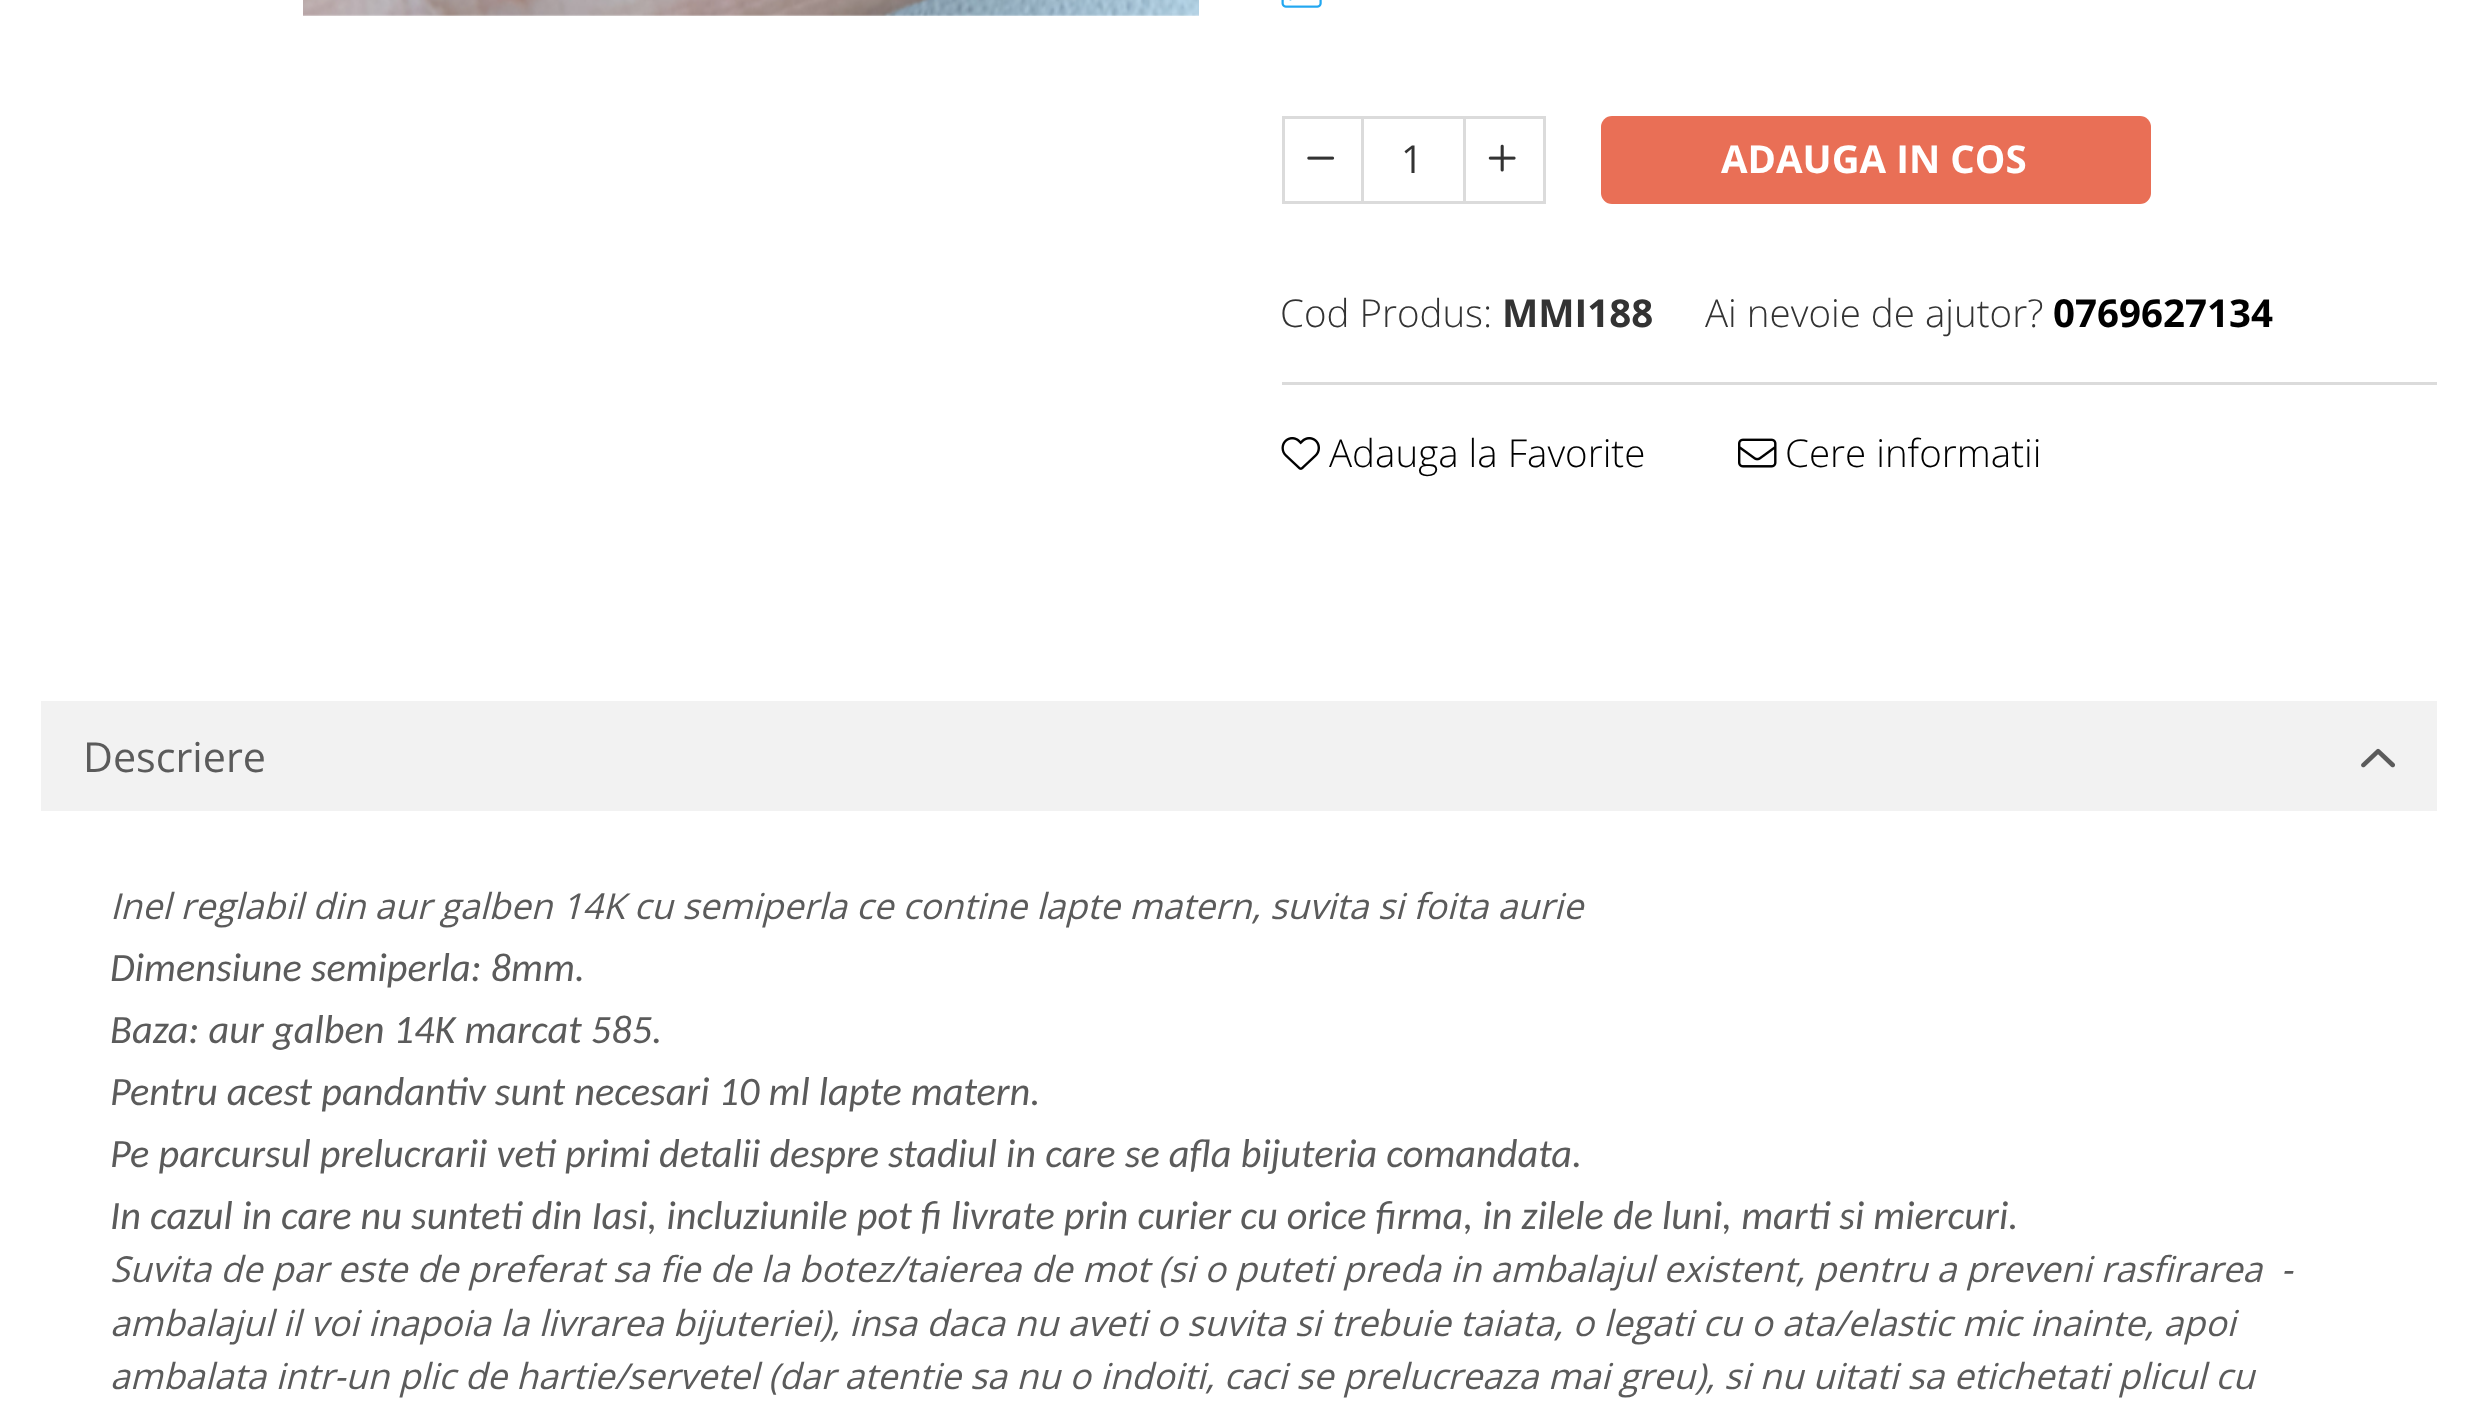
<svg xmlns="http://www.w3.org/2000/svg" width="2476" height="1406">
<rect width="100%" height="100%" fill="#fff"/>
<image x="303" y="0" width="896" height="16" href="media/1.png"/>
<image x="1281" y="0" width="41" height="8" href="media/2.png"/>
<rect x="1283.5" y="117.5" width="79" height="85" fill="none" stroke="#dbdbdb" stroke-width="3"/>
<image x="1307" y="156" width="28" height="4" href="media/3.png"/>
<rect x="1364" y="116" width="99" height="3" fill="#dbdbdb"/>
<rect x="1364" y="201" width="99" height="3" fill="#dbdbdb"/>
<text x="1401" y="173" style="font-family:Open Sans;font-size:38.5px;fill:#333">1</text>
<rect x="1464.5" y="117.5" width="80" height="85" fill="none" stroke="#dbdbdb" stroke-width="3"/>
<image x="1488" y="144" width="28" height="28" href="media/4.png"/>
<rect x="1601" y="116" width="550" height="88" rx="11" fill="#e96f56"/>
<text x="1721" y="173" style="font-family:Open Sans;font-size:38.5px;font-weight:bold;fill:#fff">ADAUGA IN COS</text>
<text x="1280" y="327" style="font-family:Open Sans;font-size:38.5px;font-weight:300;fill:#333">Cod Produs:</text>
<text x="1502" y="327" style="font-family:Open Sans;font-size:38.5px;font-weight:bold;fill:#333">MMI188</text>
<text x="1705" y="327" style="font-family:Open Sans;font-size:38.5px;font-weight:300;fill:#333">Ai nevoie de ajutor?</text>
<text x="2053" y="327" style="font-family:Open Sans;font-size:38.5px;font-weight:bold;fill:#000">0769627134</text>
<rect x="1282" y="382" width="1155" height="3" fill="#dbdbdb"/>
<image x="1281" y="437" width="39" height="33" href="media/5.png"/>
<text x="1329" y="467" style="font-family:Open Sans;font-size:38.5px;font-weight:300;fill:#000">Adauga la Favorite</text>
<image x="1738" y="438" width="39" height="30" href="media/6.png"/>
<text x="1785" y="467" style="font-family:Open Sans;font-size:38.5px;font-weight:300;fill:#000">Cere informatii</text>
<rect x="41" y="701" width="2396" height="110" fill="#f2f2f2"/>
<text x="83" y="772" style="font-family:Open Sans;font-size:41.25px;fill:#5b5b5b">Descriere</text>
<image x="2361" y="748" width="34" height="20" href="media/7.png"/>
<text x="110" y="919" style="font-family:Open Sans;font-size:35.75px;font-style:italic;fill:#5b5b5b">Inel reglabil din aur galben 14K cu semiperla ce contine lapte matern, suvita si foita aurie</text>
<text x="110" y="981" style="font-family:Carlito;font-size:40.35px;font-style:italic;fill:#5b5b5b">Dimensiune semiperla: 8mm.</text>
<text x="110" y="1043" style="font-family:Carlito;font-size:40.35px;font-style:italic;fill:#5b5b5b">Baza: aur galben 14K marcat 585.</text>
<text x="110" y="1105" style="font-family:Carlito;font-size:40.35px;font-style:italic;fill:#5b5b5b">Pentru acest pandantiv sunt necesari 10 ml lapte matern.</text>
<text x="110" y="1167" style="font-family:Carlito;font-size:40.35px;font-style:italic;fill:#5b5b5b">Pe parcursul prelucrarii veti primi detalii despre stadiul in care se afla bijuteria comandata.</text>
<text x="110" y="1229" style="font-family:Carlito;font-size:40.35px;font-style:italic;fill:#5b5b5b">In cazul in care nu sunteti din Iasi, incluziunile pot fi livrate prin curier cu orice firma, in zilele de luni, marti si miercuri.</text>
<text x="110" y="1282" style="font-family:Open Sans;font-size:35.75px;font-style:italic;fill:#5b5b5b" xml:space="preserve">Suvita de par este de preferat sa fie de la botez/taierea de mot (si o puteti preda in ambalajul existent, pentru a preveni rasfirarea  -</text>
<text x="110" y="1336" style="font-family:Open Sans;font-size:35.75px;font-style:italic;fill:#5b5b5b">ambalajul il voi inapoia la livrarea bijuteriei), insa daca nu aveti o suvita si trebuie taiata, o legati cu o ata/elastic mic inainte, apoi</text>
<text x="110" y="1389" style="font-family:Open Sans;font-size:35.75px;font-style:italic;fill:#5b5b5b">ambalata intr-un plic de hartie/servetel (dar atentie sa nu o indoiti, caci se prelucreaza mai greu), si nu uitati sa etichetati plicul cu</text>
</svg>
